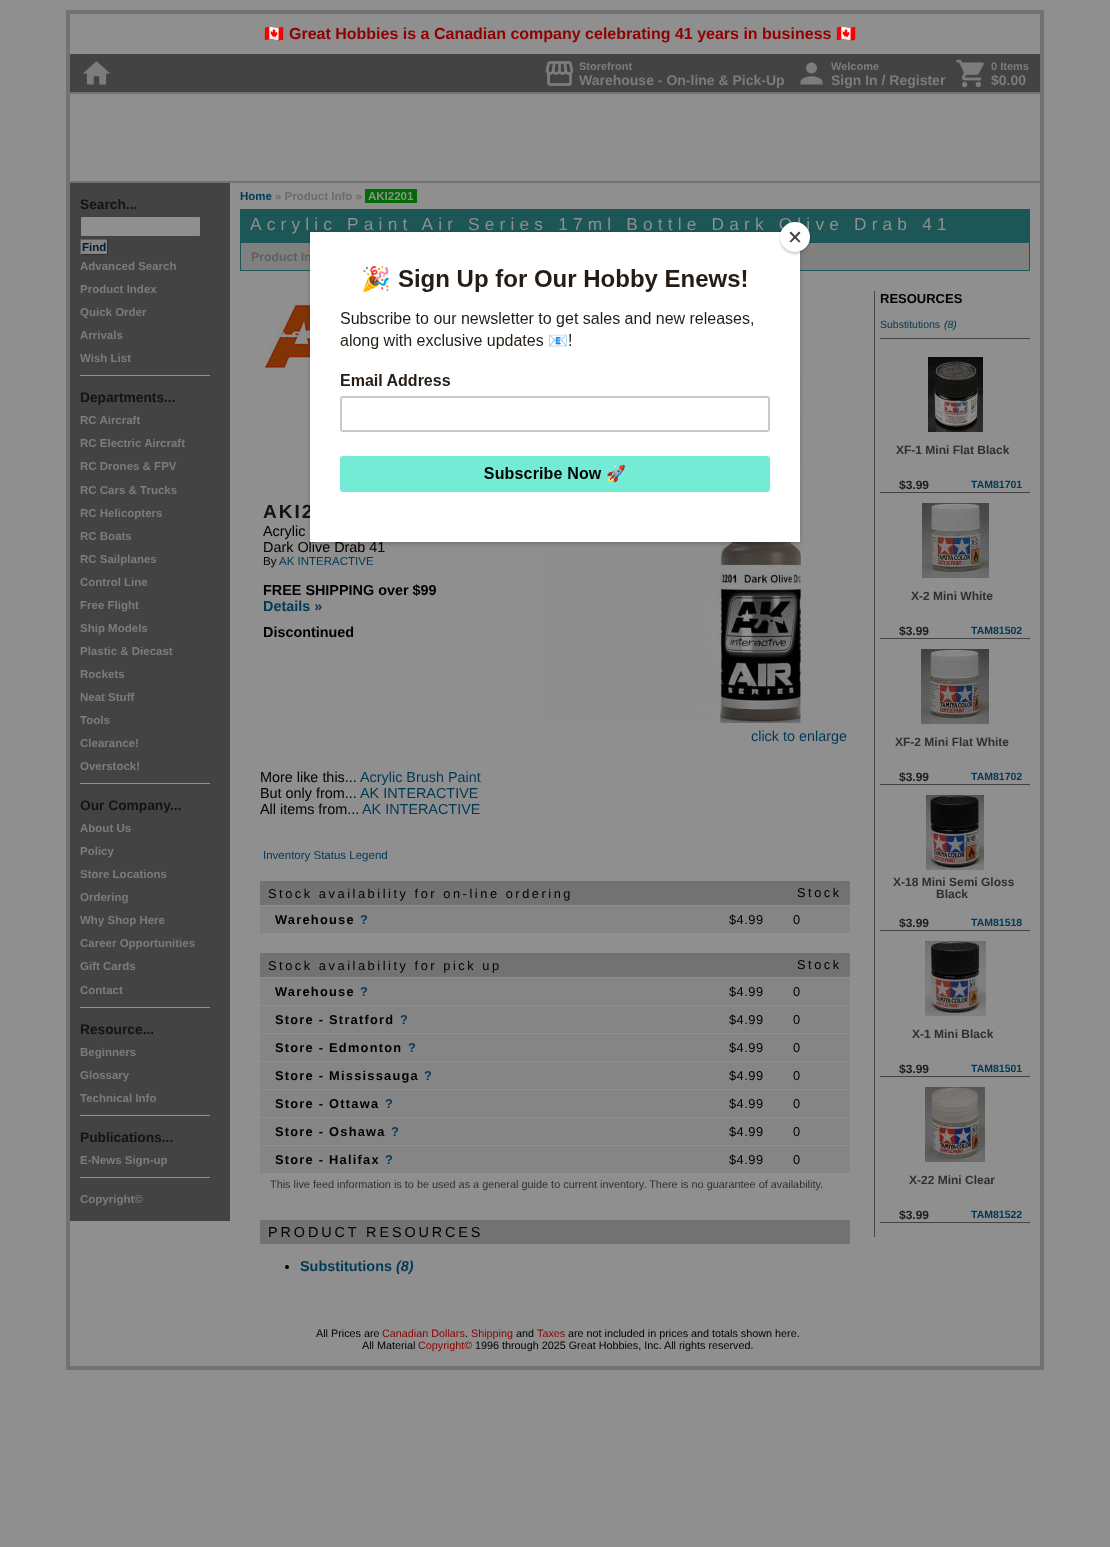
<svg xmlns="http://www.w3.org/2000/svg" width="1110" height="1547">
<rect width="100%" height="100%" fill="#8f8f8f"/>
<rect x="68" y="12" width="974" height="1356" fill="none" stroke="#727272" stroke-width="4"/>
<text x="264" y="39" style="font-family:Noto Color Emoji;font-size:16px;font-weight:bold;fill:#8f0000">🇨🇦</text>
<text x="289" y="39" style="font-family:Liberation Sans;font-size:16px;font-weight:bold;fill:#8f0000">Great Hobbies is a Canadian company celebrating 41 years in business</text>
<text x="836" y="39" style="font-family:Noto Color Emoji;font-size:16px;font-weight:bold;fill:#8f0000">🇨🇦</text>
<rect x="70" y="54" width="970" height="38" fill="#434343"/>
<image x="83" y="61" width="27" height="24" href="media/1.png"/>
<image x="545" y="61" width="29" height="25" href="media/2.png"/>
<text x="579" y="70" style="font-family:Liberation Sans;font-size:11px;font-weight:bold;fill:#7c7c7c">Storefront</text>
<text x="579" y="85" style="font-family:Liberation Sans;font-size:14px;font-weight:bold;fill:#7c7c7c">Warehouse - On-line &amp; Pick-Up</text>
<image x="800" y="62" width="23" height="23" href="media/3.png"/>
<text x="831" y="70" style="font-family:Liberation Sans;font-size:11px;font-weight:bold;fill:#7c7c7c">Welcome</text>
<text x="831" y="85" style="font-family:Liberation Sans;font-size:14px;font-weight:bold;fill:#7c7c7c">Sign In / Register</text>
<image x="956" y="59" width="28" height="29" href="media/4.png"/>
<text x="991" y="70" style="font-family:Liberation Sans;font-size:11px;font-weight:bold;fill:#7c7c7c">0 Items</text>
<text x="991" y="85" style="font-family:Liberation Sans;font-size:14px;font-weight:bold;fill:#7c7c7c">$0.00</text>
<rect x="70" y="92" width="970" height="2" fill="#727272"/>
<rect x="70" y="181" width="970" height="2" fill="#727272"/>
<text x="240" y="200" style="font-family:Liberation Sans;font-size:11.5px;font-weight:bold;fill:#003956">Home</text>
<text x="275" y="200" style="font-family:Liberation Sans;font-size:11.5px;font-weight:bold;fill:#6c6c6c">» Product Info »</text>
<rect x="365" y="189" width="52" height="14" fill="#006b05"/>
<text x="368" y="200" style="font-family:Liberation Sans;font-size:11.5px;font-weight:bold;fill:#8f8f8f">AKI2201</text>
<rect x="70" y="183" width="160" height="1038" fill="#434343"/>
<text x="80" y="209" style="font-family:Liberation Sans;font-size:13.75px;font-weight:bold;fill:#131313">Search...</text>
<rect x="80.5" y="216.5" width="120" height="20" rx="1.5" fill="#8f8f8f" stroke="#424242"/>
<rect x="81" y="240" width="26" height="14" fill="#858585"/>
<rect x="80" y="239" width="28" height="1" fill="#5f5f5f"/>
<rect x="107" y="239" width="1" height="16" fill="#312e2a"/>
<rect x="80" y="254" width="28" height="1" fill="#312e2a"/>
<rect x="80" y="239" width="1" height="16" fill="#5f5f5f"/>
<text x="82" y="251" style="font-family:Liberation Sans;font-size:11.5px;font-weight:bold;fill:#001d39">Find</text>
<text x="80" y="270" style="font-family:Liberation Sans;font-size:11.5px;font-weight:bold;fill:#7c7c7c">Advanced Search</text>
<text x="80" y="293" style="font-family:Liberation Sans;font-size:11.5px;font-weight:bold;fill:#7c7c7c">Product Index</text>
<text x="80" y="316" style="font-family:Liberation Sans;font-size:11.5px;font-weight:bold;fill:#7c7c7c">Quick Order</text>
<text x="80" y="339" style="font-family:Liberation Sans;font-size:11.5px;font-weight:bold;fill:#7c7c7c">Arrivals</text>
<text x="80" y="362" style="font-family:Liberation Sans;font-size:11.5px;font-weight:bold;fill:#7c7c7c">Wish List</text>
<rect x="80" y="375" width="130" height="1" fill="#8f8f8f"/>
<text x="80" y="402" style="font-family:Liberation Sans;font-size:13.75px;font-weight:bold;fill:#131313">Departments...</text>
<text x="80" y="424" style="font-family:Liberation Sans;font-size:11.5px;font-weight:bold;fill:#7c7c7c">RC Aircraft</text>
<text x="80" y="447" style="font-family:Liberation Sans;font-size:11.5px;font-weight:bold;fill:#7c7c7c">RC Electric Aircraft</text>
<text x="80" y="470" style="font-family:Liberation Sans;font-size:11.5px;font-weight:bold;fill:#7c7c7c">RC Drones &amp; FPV</text>
<text x="80" y="494" style="font-family:Liberation Sans;font-size:11.5px;font-weight:bold;fill:#7c7c7c">RC Cars &amp; Trucks</text>
<text x="80" y="517" style="font-family:Liberation Sans;font-size:11.5px;font-weight:bold;fill:#7c7c7c">RC Helicopters</text>
<text x="80" y="540" style="font-family:Liberation Sans;font-size:11.5px;font-weight:bold;fill:#7c7c7c">RC Boats</text>
<text x="80" y="563" style="font-family:Liberation Sans;font-size:11.5px;font-weight:bold;fill:#7c7c7c">RC Sailplanes</text>
<text x="80" y="586" style="font-family:Liberation Sans;font-size:11.5px;font-weight:bold;fill:#7c7c7c">Control Line</text>
<text x="80" y="609" style="font-family:Liberation Sans;font-size:11.5px;font-weight:bold;fill:#7c7c7c">Free Flight</text>
<text x="80" y="632" style="font-family:Liberation Sans;font-size:11.5px;font-weight:bold;fill:#7c7c7c">Ship Models</text>
<text x="80" y="655" style="font-family:Liberation Sans;font-size:11.5px;font-weight:bold;fill:#7c7c7c">Plastic &amp; Diecast</text>
<text x="80" y="678" style="font-family:Liberation Sans;font-size:11.5px;font-weight:bold;fill:#7c7c7c">Rockets</text>
<text x="80" y="701" style="font-family:Liberation Sans;font-size:11.5px;font-weight:bold;fill:#7c7c7c">Neat Stuff</text>
<text x="80" y="724" style="font-family:Liberation Sans;font-size:11.5px;font-weight:bold;fill:#7c7c7c">Tools</text>
<text x="80" y="747" style="font-family:Liberation Sans;font-size:11.5px;font-weight:bold;fill:#7c7c7c">Clearance!</text>
<text x="80" y="770" style="font-family:Liberation Sans;font-size:11.5px;font-weight:bold;fill:#7c7c7c">Overstock!</text>
<rect x="80" y="783" width="130" height="1" fill="#8f8f8f"/>
<text x="80" y="810" style="font-family:Liberation Sans;font-size:13.75px;font-weight:bold;fill:#131313">Our Company...</text>
<text x="80" y="832" style="font-family:Liberation Sans;font-size:11.5px;font-weight:bold;fill:#7c7c7c">About Us</text>
<text x="80" y="855" style="font-family:Liberation Sans;font-size:11.5px;font-weight:bold;fill:#7c7c7c">Policy</text>
<text x="80" y="878" style="font-family:Liberation Sans;font-size:11.5px;font-weight:bold;fill:#7c7c7c">Store Locations</text>
<text x="80" y="901" style="font-family:Liberation Sans;font-size:11.5px;font-weight:bold;fill:#7c7c7c">Ordering</text>
<text x="80" y="924" style="font-family:Liberation Sans;font-size:11.5px;font-weight:bold;fill:#7c7c7c">Why Shop Here</text>
<text x="80" y="947" style="font-family:Liberation Sans;font-size:11.5px;font-weight:bold;fill:#7c7c7c">Career Opportunities</text>
<text x="80" y="970" style="font-family:Liberation Sans;font-size:11.5px;font-weight:bold;fill:#7c7c7c">Gift Cards</text>
<text x="80" y="994" style="font-family:Liberation Sans;font-size:11.5px;font-weight:bold;fill:#7c7c7c">Contact</text>
<rect x="80" y="1007" width="130" height="1" fill="#8f8f8f"/>
<text x="80" y="1034" style="font-family:Liberation Sans;font-size:13.75px;font-weight:bold;fill:#131313">Resource...</text>
<text x="80" y="1056" style="font-family:Liberation Sans;font-size:11.5px;font-weight:bold;fill:#7c7c7c">Beginners</text>
<text x="80" y="1079" style="font-family:Liberation Sans;font-size:11.5px;font-weight:bold;fill:#7c7c7c">Glossary</text>
<text x="80" y="1102" style="font-family:Liberation Sans;font-size:11.5px;font-weight:bold;fill:#7c7c7c">Technical Info</text>
<rect x="80" y="1115" width="130" height="1" fill="#8f8f8f"/>
<text x="80" y="1142" style="font-family:Liberation Sans;font-size:13.75px;font-weight:bold;fill:#131313">Publications...</text>
<text x="80" y="1164" style="font-family:Liberation Sans;font-size:11.5px;font-weight:bold;fill:#7c7c7c">E-News Sign-up</text>
<rect x="80" y="1177" width="130" height="1" fill="#8f8f8f"/>
<text x="80" y="1203" style="font-family:Liberation Sans;font-size:11.5px;font-weight:bold;fill:#7c7c7c">Copyright©</text>
<rect x="240" y="209" width="790" height="33" fill="#1d5656"/>
<text x="250" y="230" style="font-family:Liberation Sans;font-size:17.3px;letter-spacing:5.18px;fill:#8f8f8f">Acrylic Paint Air Series 17ml Bottle Dark Olive Drab 41</text>
<rect x="240.5" y="242.5" width="789" height="28" fill="#808080" stroke="#1d5656"/>
<text x="251" y="261" style="font-family:Liberation Sans;font-size:12.25px;font-weight:bold;fill:#5f5f5f">Product In</text>
<image x="261" y="302" width="49" height="67" href="media/5.png"/>
<text x="263" y="518" style="font-family:Liberation Sans;font-size:19px;font-weight:bold;letter-spacing:2px;fill:#131313">AKI2</text>
<text x="263" y="536" style="font-family:Liberation Sans;font-size:14.4px;fill:#000">Acrylic</text>
<text x="263" y="552" style="font-family:Liberation Sans;font-size:14.4px;fill:#000">Dark Olive Drab 41</text>
<text x="263" y="565" style="font-family:Liberation Sans;font-size:11.5px;fill:#000">By</text>
<text x="279" y="565" style="font-family:Liberation Sans;font-size:11.5px;fill:#003956">AK INTERACTIVE</text>
<text x="263" y="595" style="font-family:Liberation Sans;font-size:14.4px;font-weight:bold;fill:#000">FREE SHIPPING over $99</text>
<text x="263" y="611" style="font-family:Liberation Sans;font-size:14.4px;font-weight:bold;fill:#003956">Details »</text>
<text x="263" y="637" style="font-family:Liberation Sans;font-size:14.4px;font-weight:bold;fill:#000">Discontinued</text>
<image x="543" y="373" width="258" height="350" href="media/6.png"/>
<text x="751" y="741" style="font-family:Liberation Sans;font-size:14.4px;fill:#003956">click to enlarge</text>
<rect x="874" y="291" width="1" height="946" fill="#434343"/>
<text x="880" y="303" style="font-family:Liberation Sans;font-size:13px;font-weight:bold;fill:#000">RESOURCES</text>
<text x="880" y="328" style="font-family:Liberation Sans;font-size:10.5px;fill:#003956">Substitutions</text>
<text x="944" y="328" style="font-family:Liberation Sans;font-size:10.5px;font-style:italic;fill:#003956">(8)</text>
<rect x="880" y="338" width="150" height="1" fill="#434343"/>
<image x="928" y="357" width="55" height="75" href="media/7.png"/>
<text x="896" y="454" style="font-family:Liberation Sans;font-size:12px;font-weight:bold;fill:#303030">XF-1 Mini Flat Black</text>
<text x="899" y="489" style="font-family:Liberation Sans;font-size:12px;font-weight:bold;fill:#1d1d1d">$3.99</text>
<text x="971" y="488" style="font-family:Liberation Sans;font-size:10.5px;font-weight:bold;fill:#003956">TAM81701</text>
<rect x="880" y="492" width="150" height="1" fill="#434343"/>
<image x="922" y="503" width="67" height="75" href="media/8.png"/>
<text x="911" y="600" style="font-family:Liberation Sans;font-size:12px;font-weight:bold;fill:#303030">X-2 Mini White</text>
<text x="899" y="635" style="font-family:Liberation Sans;font-size:12px;font-weight:bold;fill:#1d1d1d">$3.99</text>
<text x="971" y="634" style="font-family:Liberation Sans;font-size:10.5px;font-weight:bold;fill:#003956">TAM81502</text>
<rect x="880" y="638" width="150" height="1" fill="#434343"/>
<image x="921" y="649" width="68" height="75" href="media/9.png"/>
<text x="895" y="746" style="font-family:Liberation Sans;font-size:12px;font-weight:bold;fill:#303030">XF-2 Mini Flat White</text>
<text x="899" y="781" style="font-family:Liberation Sans;font-size:12px;font-weight:bold;fill:#1d1d1d">$3.99</text>
<text x="971" y="780" style="font-family:Liberation Sans;font-size:10.5px;font-weight:bold;fill:#003956">TAM81702</text>
<rect x="880" y="784" width="150" height="1" fill="#434343"/>
<image x="926" y="795" width="58" height="75" href="media/10.png"/>
<text x="893" y="886" style="font-family:Liberation Sans;font-size:12px;font-weight:bold;fill:#303030">X-18 Mini Semi Gloss</text>
<text x="936" y="898" style="font-family:Liberation Sans;font-size:12px;font-weight:bold;fill:#303030">Black</text>
<text x="899" y="927" style="font-family:Liberation Sans;font-size:12px;font-weight:bold;fill:#1d1d1d">$3.99</text>
<text x="971" y="926" style="font-family:Liberation Sans;font-size:10.5px;font-weight:bold;fill:#003956">TAM81518</text>
<rect x="880" y="930" width="150" height="1" fill="#434343"/>
<image x="925" y="941" width="61" height="75" href="media/11.png"/>
<text x="912" y="1038" style="font-family:Liberation Sans;font-size:12px;font-weight:bold;fill:#303030">X-1 Mini Black</text>
<text x="899" y="1073" style="font-family:Liberation Sans;font-size:12px;font-weight:bold;fill:#1d1d1d">$3.99</text>
<text x="971" y="1072" style="font-family:Liberation Sans;font-size:10.5px;font-weight:bold;fill:#003956">TAM81501</text>
<rect x="880" y="1076" width="150" height="1" fill="#434343"/>
<image x="925" y="1087" width="60" height="75" href="media/12.png"/>
<text x="909" y="1184" style="font-family:Liberation Sans;font-size:12px;font-weight:bold;fill:#303030">X-22 Mini Clear</text>
<text x="899" y="1219" style="font-family:Liberation Sans;font-size:12px;font-weight:bold;fill:#1d1d1d">$3.99</text>
<text x="971" y="1218" style="font-family:Liberation Sans;font-size:10.5px;font-weight:bold;fill:#003956">TAM81522</text>
<rect x="880" y="1222" width="150" height="1" fill="#434343"/>
<text x="260" y="782" style="font-family:Liberation Sans;font-size:14.4px;fill:#000">More like this...</text>
<text x="360" y="782" style="font-family:Liberation Sans;font-size:14.4px;fill:#003956">Acrylic Brush Paint</text>
<text x="260" y="798" style="font-family:Liberation Sans;font-size:14.4px;fill:#000">But only from...</text>
<text x="360" y="798" style="font-family:Liberation Sans;font-size:14.4px;fill:#003956">AK INTERACTIVE</text>
<text x="260" y="814" style="font-family:Liberation Sans;font-size:14.4px;fill:#000">All items from...</text>
<text x="362" y="814" style="font-family:Liberation Sans;font-size:14.4px;fill:#003956">AK INTERACTIVE</text>
<text x="263" y="859" style="font-family:Liberation Sans;font-size:11.5px;fill:#003956">Inventory Status Legend</text>
<rect x="260" y="881" width="590" height="24" fill="#727272"/>
<text x="268" y="898" style="font-family:Liberation Sans;font-size:12.8px;letter-spacing:2.55px;fill:#000">Stock availability for on-line ordering</text>
<text x="797" y="897" style="font-family:Liberation Sans;font-size:12.8px;letter-spacing:2.55px;fill:#000">Stock</text>
<rect x="260" y="906" width="590" height="27" fill="#858585"/>
<text x="275" y="924" style="font-family:Liberation Sans;font-size:12.8px;font-weight:bold;letter-spacing:1.25px;fill:#000">Warehouse</text>
<text x="360" y="924" style="font-family:Liberation Sans;font-size:12.8px;font-weight:bold;letter-spacing:1.25px;fill:#003956">?</text>
<text x="729" y="924" style="font-family:Liberation Sans;font-size:12.8px;letter-spacing:0.5px;fill:#000">$4.99</text>
<text x="793" y="924" style="font-family:Liberation Sans;font-size:12.8px;letter-spacing:0.5px;fill:#000">0</text>
<rect x="260" y="953" width="590" height="24" fill="#727272"/>
<text x="268" y="970" style="font-family:Liberation Sans;font-size:12.8px;letter-spacing:2.55px;fill:#000">Stock availability for pick up</text>
<text x="797" y="969" style="font-family:Liberation Sans;font-size:12.8px;letter-spacing:2.55px;fill:#000">Stock</text>
<rect x="260" y="978" width="590" height="27" fill="#858585"/>
<text x="275" y="996" style="font-family:Liberation Sans;font-size:12.8px;font-weight:bold;letter-spacing:1.25px;fill:#000">Warehouse</text>
<text x="360" y="996" style="font-family:Liberation Sans;font-size:12.8px;font-weight:bold;letter-spacing:1.25px;fill:#003956">?</text>
<text x="729" y="996" style="font-family:Liberation Sans;font-size:12.8px;letter-spacing:0.5px;fill:#000">$4.99</text>
<text x="793" y="996" style="font-family:Liberation Sans;font-size:12.8px;letter-spacing:0.5px;fill:#000">0</text>
<rect x="260" y="1006" width="590" height="27" fill="#858585"/>
<text x="275" y="1024" style="font-family:Liberation Sans;font-size:12.8px;font-weight:bold;letter-spacing:1.25px;fill:#000">Store - Stratford</text>
<text x="400" y="1024" style="font-family:Liberation Sans;font-size:12.8px;font-weight:bold;letter-spacing:1.25px;fill:#003956">?</text>
<text x="729" y="1024" style="font-family:Liberation Sans;font-size:12.8px;letter-spacing:0.5px;fill:#000">$4.99</text>
<text x="793" y="1024" style="font-family:Liberation Sans;font-size:12.8px;letter-spacing:0.5px;fill:#000">0</text>
<rect x="260" y="1034" width="590" height="27" fill="#858585"/>
<text x="275" y="1052" style="font-family:Liberation Sans;font-size:12.8px;font-weight:bold;letter-spacing:1.25px;fill:#000">Store - Edmonton</text>
<text x="408" y="1052" style="font-family:Liberation Sans;font-size:12.8px;font-weight:bold;letter-spacing:1.25px;fill:#003956">?</text>
<text x="729" y="1052" style="font-family:Liberation Sans;font-size:12.8px;letter-spacing:0.5px;fill:#000">$4.99</text>
<text x="793" y="1052" style="font-family:Liberation Sans;font-size:12.8px;letter-spacing:0.5px;fill:#000">0</text>
<rect x="260" y="1062" width="590" height="27" fill="#858585"/>
<text x="275" y="1080" style="font-family:Liberation Sans;font-size:12.8px;font-weight:bold;letter-spacing:1.25px;fill:#000">Store - Mississauga</text>
<text x="424" y="1080" style="font-family:Liberation Sans;font-size:12.8px;font-weight:bold;letter-spacing:1.25px;fill:#003956">?</text>
<text x="729" y="1080" style="font-family:Liberation Sans;font-size:12.8px;letter-spacing:0.5px;fill:#000">$4.99</text>
<text x="793" y="1080" style="font-family:Liberation Sans;font-size:12.8px;letter-spacing:0.5px;fill:#000">0</text>
<rect x="260" y="1090" width="590" height="27" fill="#858585"/>
<text x="275" y="1108" style="font-family:Liberation Sans;font-size:12.8px;font-weight:bold;letter-spacing:1.25px;fill:#000">Store - Ottawa</text>
<text x="385" y="1108" style="font-family:Liberation Sans;font-size:12.8px;font-weight:bold;letter-spacing:1.25px;fill:#003956">?</text>
<text x="729" y="1108" style="font-family:Liberation Sans;font-size:12.8px;letter-spacing:0.5px;fill:#000">$4.99</text>
<text x="793" y="1108" style="font-family:Liberation Sans;font-size:12.8px;letter-spacing:0.5px;fill:#000">0</text>
<rect x="260" y="1118" width="590" height="27" fill="#858585"/>
<text x="275" y="1136" style="font-family:Liberation Sans;font-size:12.8px;font-weight:bold;letter-spacing:1.25px;fill:#000">Store - Oshawa</text>
<text x="391" y="1136" style="font-family:Liberation Sans;font-size:12.8px;font-weight:bold;letter-spacing:1.25px;fill:#003956">?</text>
<text x="729" y="1136" style="font-family:Liberation Sans;font-size:12.8px;letter-spacing:0.5px;fill:#000">$4.99</text>
<text x="793" y="1136" style="font-family:Liberation Sans;font-size:12.8px;letter-spacing:0.5px;fill:#000">0</text>
<rect x="260" y="1146" width="590" height="27" fill="#858585"/>
<text x="275" y="1164" style="font-family:Liberation Sans;font-size:12.8px;font-weight:bold;letter-spacing:1.25px;fill:#000">Store - Halifax</text>
<text x="385" y="1164" style="font-family:Liberation Sans;font-size:12.8px;font-weight:bold;letter-spacing:1.25px;fill:#003956">?</text>
<text x="729" y="1164" style="font-family:Liberation Sans;font-size:12.8px;letter-spacing:0.5px;fill:#000">$4.99</text>
<text x="793" y="1164" style="font-family:Liberation Sans;font-size:12.8px;letter-spacing:0.5px;fill:#000">0</text>
<text x="270" y="1188" style="font-family:Liberation Sans;font-size:10.88px;fill:#303030">This live feed information is to be used as a general guide to current inventory. There is no guarantee of availability.</text>
<rect x="260" y="1220" width="590" height="24" fill="#727272"/>
<text x="268" y="1237" style="font-family:Liberation Sans;font-size:14.4px;letter-spacing:2.9px;fill:#000">PRODUCT RESOURCES</text>
<circle cx="287" cy="1267" r="2" fill="#000"/>
<text x="300" y="1271" style="font-family:Liberation Sans;font-size:14.4px;font-weight:bold;fill:#003956">Substitutions</text>
<text x="396" y="1271" style="font-family:Liberation Sans;font-size:14.4px;font-weight:bold;font-style:italic;fill:#003956">(8)</text>
<text x="316" y="1337" style="font-family:Liberation Sans;font-size:10.8px;fill:#000">All Prices are</text>
<text x="382" y="1337" style="font-family:Liberation Sans;font-size:10.8px;fill:#8f0000">Canadian Dollars</text>
<text x="465" y="1337" style="font-family:Liberation Sans;font-size:10.8px;fill:#000">.</text>
<text x="471" y="1337" style="font-family:Liberation Sans;font-size:10.8px;fill:#8f0000">Shipping</text>
<text x="516" y="1337" style="font-family:Liberation Sans;font-size:10.8px;fill:#000">and</text>
<text x="537" y="1337" style="font-family:Liberation Sans;font-size:10.8px;fill:#8f0000">Taxes</text>
<text x="568" y="1337" style="font-family:Liberation Sans;font-size:10.8px;fill:#000">are not included in prices and totals shown here.</text>
<text x="362" y="1349" style="font-family:Liberation Sans;font-size:10.8px;fill:#000">All Material</text>
<text x="418" y="1349" style="font-family:Liberation Sans;font-size:10.8px;fill:#8f0000">Copyright©</text>
<text x="475" y="1349" style="font-family:Liberation Sans;font-size:10.8px;fill:#000">1996 through 2025 Great Hobbies, Inc.</text>
<text x="664" y="1349" style="font-family:Liberation Sans;font-size:10.8px;fill:#000">All rights reserved.</text>
<rect x="310" y="234" width="490" height="310" fill="#00000033" filter="blur(2px)"/>
<image x="310" y="232" width="490" height="310" href="media/13.png"/>
<rect x="780" y="224" width="30" height="30" rx="15" fill="#00000033" filter="blur(1px)"/>
<circle cx="795" cy="237" r="15" fill="#fff"/>
<path d="M799 231.5l1.5 1.5l-9.5 9.5l-1.5-1z" fill="#414141"/>
<path d="M789.5 233l1.5-1.5l9.5 10l-1.5 1z" fill="#414141"/>
</svg>
